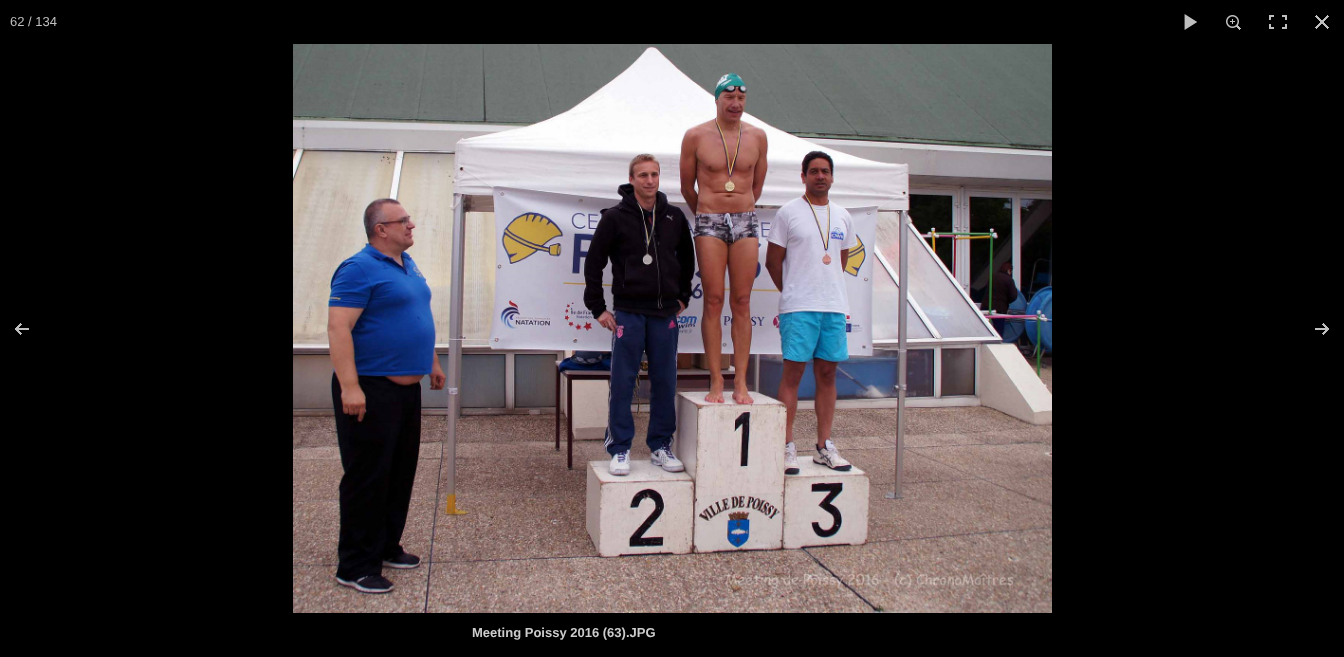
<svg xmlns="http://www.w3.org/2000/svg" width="1344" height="657">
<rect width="100%" height="100%" fill="#000"/>
<text x="10" y="26" style="font-family:Liberation Sans;font-size:13px;fill:#bfbfbf">62 / 134</text>
<image x="1184" y="14" width="13" height="16" href="media/1.png"/>
<image x="1226" y="15" width="15" height="15" href="media/2.png"/>
<image x="1269" y="15" width="18" height="14" href="media/3.png"/>
<image x="1315" y="15" width="14" height="14" href="media/4.png"/>
<image x="15" y="323" width="14" height="12" href="media/5.png"/>
<image x="1315" y="323" width="14" height="12" href="media/6.png"/>
<text x="472" y="637" style="font-family:Liberation Sans;font-size:13px;font-weight:bold;fill:#ccc">Meeting Poissy 2016 (63).JPG</text>
<image x="293" y="44" width="759" height="569" href="media/7.png"/>
</svg>
